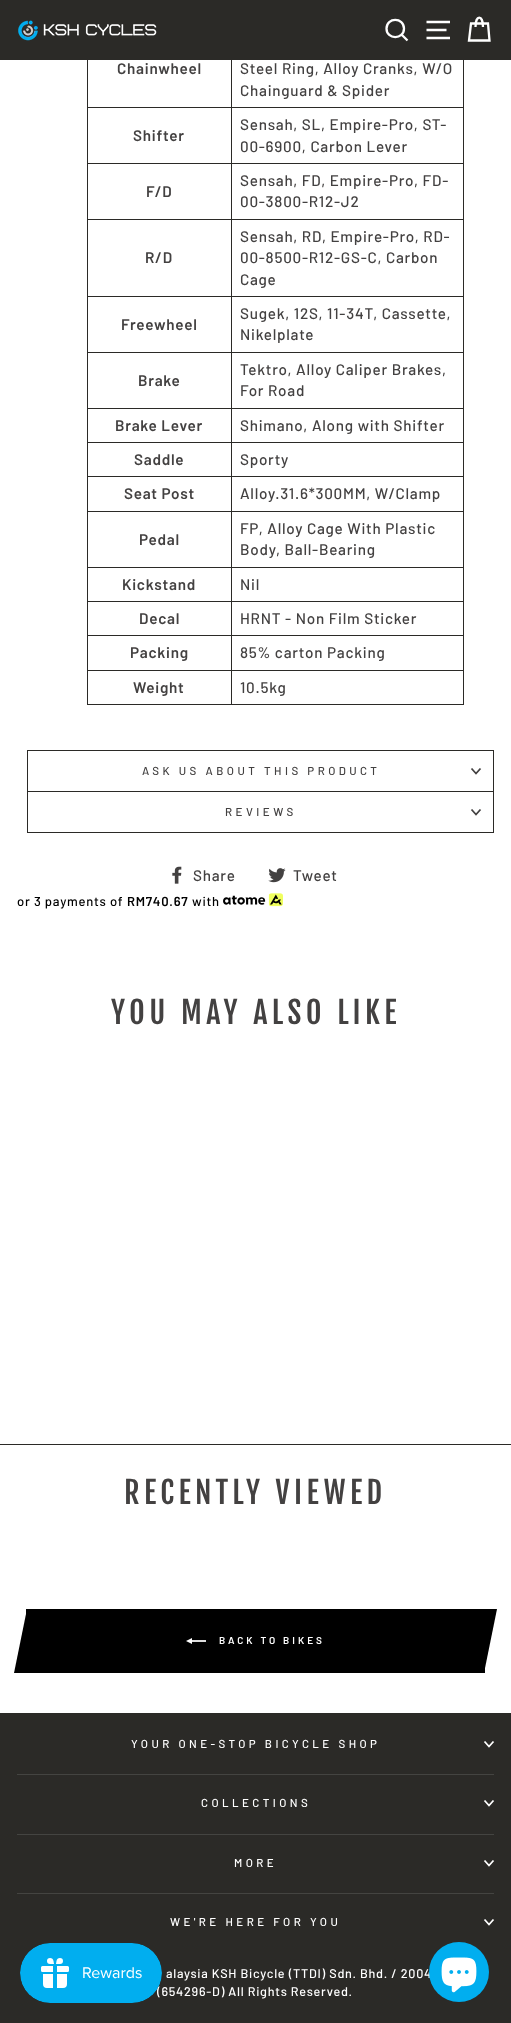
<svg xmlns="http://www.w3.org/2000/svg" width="511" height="2023">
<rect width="100%" height="100%" fill="#fff"/>
<rect width="511" height="60" fill="#2b2a27"/>
<image x="18" y="20" width="139" height="21" href="media/1.png"/>
<path d="M404 28.5c0 11.5-17.5 11.5-17.5 0c0-11.5 17.5-11.5 17.5 0zm3.5 12l-6-6" fill="none" stroke="#fff" stroke-width="2.3"/>
<path d="M426.5 22h23.5m-23.5 8h20m-20 8h23.5m25.5-11c0-12.5 7.5-12.5 7.5 0" fill="none" stroke="#fff" stroke-width="2.3"/>
<path d="M471 23.5h17l1.5 17h-20.5z" fill="none" stroke="#fff" stroke-width="2.3"/>
<rect x="87" y="60" width="377" height="645" fill="#2b2a27"/>
<rect x="88" y="60" width="143" height="47" fill="#fff"/>
<text x="117" y="74" style="font-family:Barlow;font-size:15.25px;font-weight:600;letter-spacing:0.75px;fill:#434141">Chainwheel</text>
<rect x="232" y="60" width="231" height="47" fill="#fff"/>
<text x="240" y="74" style="font-family:Barlow;font-size:15.25px;font-weight:500;letter-spacing:0.75px;fill:#434141">Steel Ring, Alloy Cranks, W/O</text>
<text x="240" y="96" style="font-family:Barlow;font-size:15.25px;font-weight:500;letter-spacing:0.75px;fill:#434141">Chainguard &amp; Spider</text>
<rect x="88" y="108" width="143" height="55" fill="#fff"/>
<text x="133" y="141" style="font-family:Barlow;font-size:15.25px;font-weight:600;letter-spacing:0.75px;fill:#434141">Shifter</text>
<rect x="232" y="108" width="231" height="55" fill="#fff"/>
<text x="240" y="130" style="font-family:Barlow;font-size:15.25px;font-weight:500;letter-spacing:0.75px;fill:#434141">Sensah, SL, Empire-Pro, ST-</text>
<text x="240" y="152" style="font-family:Barlow;font-size:15.25px;font-weight:500;letter-spacing:0.75px;fill:#434141">00-6900, Carbon Lever</text>
<rect x="88" y="164" width="143" height="55" fill="#fff"/>
<text x="146" y="197" style="font-family:Barlow;font-size:15.25px;font-weight:600;letter-spacing:0.75px;fill:#434141">F/D</text>
<rect x="232" y="164" width="231" height="55" fill="#fff"/>
<text x="240" y="186" style="font-family:Barlow;font-size:15.25px;font-weight:500;letter-spacing:0.75px;fill:#434141">Sensah, FD, Empire-Pro, FD-</text>
<text x="240" y="207" style="font-family:Barlow;font-size:15.25px;font-weight:500;letter-spacing:0.75px;fill:#434141">00-3800-R12-J2</text>
<rect x="88" y="220" width="143" height="76" fill="#fff"/>
<text x="145" y="263" style="font-family:Barlow;font-size:15.25px;font-weight:600;letter-spacing:0.75px;fill:#434141">R/D</text>
<rect x="232" y="220" width="231" height="76" fill="#fff"/>
<text x="240" y="242" style="font-family:Barlow;font-size:15.25px;font-weight:500;letter-spacing:0.75px;fill:#434141">Sensah, RD, Empire-Pro, RD-</text>
<text x="240" y="263" style="font-family:Barlow;font-size:15.25px;font-weight:500;letter-spacing:0.75px;fill:#434141">00-8500-R12-GS-C, Carbon</text>
<text x="240" y="285" style="font-family:Barlow;font-size:15.25px;font-weight:500;letter-spacing:0.75px;fill:#434141">Cage</text>
<rect x="88" y="297" width="143" height="55" fill="#fff"/>
<text x="121" y="330" style="font-family:Barlow;font-size:15.25px;font-weight:600;letter-spacing:0.75px;fill:#434141">Freewheel</text>
<rect x="232" y="297" width="231" height="55" fill="#fff"/>
<text x="240" y="319" style="font-family:Barlow;font-size:15.25px;font-weight:500;letter-spacing:0.75px;fill:#434141">Sugek, 12S, 11-34T, Cassette,</text>
<text x="240" y="340" style="font-family:Barlow;font-size:15.25px;font-weight:500;letter-spacing:0.75px;fill:#434141">Nikelplate</text>
<rect x="88" y="353" width="143" height="55" fill="#fff"/>
<text x="138" y="386" style="font-family:Barlow;font-size:15.25px;font-weight:600;letter-spacing:0.75px;fill:#434141">Brake</text>
<rect x="232" y="353" width="231" height="55" fill="#fff"/>
<text x="240" y="375" style="font-family:Barlow;font-size:15.25px;font-weight:500;letter-spacing:0.75px;fill:#434141">Tektro, Alloy Caliper Brakes,</text>
<text x="240" y="396" style="font-family:Barlow;font-size:15.25px;font-weight:500;letter-spacing:0.75px;fill:#434141">For Road</text>
<rect x="88" y="409" width="143" height="33" fill="#fff"/>
<text x="115" y="431" style="font-family:Barlow;font-size:15.25px;font-weight:600;letter-spacing:0.75px;fill:#434141">Brake Lever</text>
<rect x="232" y="409" width="231" height="33" fill="#fff"/>
<text x="240" y="431" style="font-family:Barlow;font-size:15.25px;font-weight:500;letter-spacing:0.75px;fill:#434141">Shimano, Along with Shifter</text>
<rect x="88" y="443" width="143" height="33" fill="#fff"/>
<text x="134" y="465" style="font-family:Barlow;font-size:15.25px;font-weight:600;letter-spacing:0.75px;fill:#434141">Saddle</text>
<rect x="232" y="443" width="231" height="33" fill="#fff"/>
<text x="240" y="465" style="font-family:Barlow;font-size:15.25px;font-weight:500;letter-spacing:0.75px;fill:#434141">Sporty</text>
<rect x="88" y="477" width="143" height="34" fill="#fff"/>
<text x="124" y="499" style="font-family:Barlow;font-size:15.25px;font-weight:600;letter-spacing:0.75px;fill:#434141">Seat Post</text>
<rect x="232" y="477" width="231" height="34" fill="#fff"/>
<text x="240" y="499" style="font-family:Barlow;font-size:15.25px;font-weight:500;letter-spacing:0.75px;fill:#434141">Alloy.31.6*300MM, W/Clamp</text>
<rect x="88" y="512" width="143" height="55" fill="#fff"/>
<text x="139" y="545" style="font-family:Barlow;font-size:15.25px;font-weight:600;letter-spacing:0.75px;fill:#434141">Pedal</text>
<rect x="232" y="512" width="231" height="55" fill="#fff"/>
<text x="240" y="534" style="font-family:Barlow;font-size:15.25px;font-weight:500;letter-spacing:0.75px;fill:#434141">FP, Alloy Cage With Plastic</text>
<text x="240" y="555" style="font-family:Barlow;font-size:15.25px;font-weight:500;letter-spacing:0.75px;fill:#434141">Body, Ball-Bearing</text>
<rect x="88" y="568" width="143" height="33" fill="#fff"/>
<text x="122" y="590" style="font-family:Barlow;font-size:15.25px;font-weight:600;letter-spacing:0.75px;fill:#434141">Kickstand</text>
<rect x="232" y="568" width="231" height="33" fill="#fff"/>
<text x="240" y="590" style="font-family:Barlow;font-size:15.25px;font-weight:500;letter-spacing:0.75px;fill:#434141">Nil</text>
<rect x="88" y="602" width="143" height="33" fill="#fff"/>
<text x="139" y="624" style="font-family:Barlow;font-size:15.25px;font-weight:600;letter-spacing:0.75px;fill:#434141">Decal</text>
<rect x="232" y="602" width="231" height="33" fill="#fff"/>
<text x="240" y="624" style="font-family:Barlow;font-size:15.25px;font-weight:500;letter-spacing:0.75px;fill:#434141">HRNT - Non Film Sticker</text>
<rect x="88" y="636" width="143" height="34" fill="#fff"/>
<text x="130" y="658" style="font-family:Barlow;font-size:15.25px;font-weight:600;letter-spacing:0.75px;fill:#434141">Packing</text>
<rect x="232" y="636" width="231" height="34" fill="#fff"/>
<text x="240" y="658" style="font-family:Barlow;font-size:15.25px;font-weight:500;letter-spacing:0.75px;fill:#434141">85% carton Packing</text>
<rect x="88" y="671" width="143" height="33" fill="#fff"/>
<text x="133" y="693" style="font-family:Barlow;font-size:15.25px;font-weight:600;letter-spacing:0.75px;fill:#434141">Weight</text>
<rect x="232" y="671" width="231" height="33" fill="#fff"/>
<text x="240" y="693" style="font-family:Barlow;font-size:15.25px;font-weight:500;letter-spacing:0.75px;fill:#434141">10.5kg</text>
<rect x="27" y="832" width="467" height="1" fill="#2b2a27"/>
<rect x="27" y="750" width="467" height="1" fill="#2b2a27"/>
<rect x="493" y="750" width="1" height="41" fill="#2b2a27"/>
<rect x="27" y="750" width="1" height="41" fill="#2b2a27"/>
<text x="142" y="775" style="font-family:Barlow;font-size:11.5px;font-weight:500;letter-spacing:3.45px;fill:#434141">ASK US ABOUT THIS PRODUCT</text>
<path d="M471.5 768.5l4.5 5l4.5-5" fill="none" stroke="#434141" stroke-width="1.8"/>
<rect x="27" y="791" width="467" height="1" fill="#2b2a27"/>
<rect x="493" y="791" width="1" height="41" fill="#2b2a27"/>
<rect x="27" y="791" width="1" height="41" fill="#2b2a27"/>
<text x="225" y="816" style="font-family:Barlow;font-size:11.5px;font-weight:500;letter-spacing:3.45px;fill:#434141">REVIEWS</text>
<path d="M471.5 809.5l4.5 5l4.5-5" fill="none" stroke="#434141" stroke-width="1.8"/>
<image x="172" y="866" width="10" height="18" href="media/2.png"/>
<text x="193" y="881" style="font-family:Barlow;font-size:15.25px;font-weight:500;letter-spacing:0.75px;fill:#434141">Share</text>
<image x="268" y="868" width="18" height="15" href="media/3.png"/>
<text x="293" y="881" style="font-family:Barlow;font-size:15.25px;font-weight:500;letter-spacing:0.75px;fill:#434141">Tweet</text>
<text x="17" y="906" style="font-family:Barlow;font-size:13px;font-weight:500;letter-spacing:0.75px;fill:#000">or 3 payments of</text>
<text x="127" y="906" style="font-family:Barlow;font-size:13px;font-weight:600;letter-spacing:0.75px;fill:#000">RM740.67</text>
<text x="192" y="906" style="font-family:Barlow;font-size:13px;font-weight:500;letter-spacing:0.75px;fill:#000">with</text>
<image x="223" y="893" width="60" height="14" href="media/4.png"/>
<text x="111" y="1024" style="font-family:Fjalla One;font-size:30.25px;letter-spacing:4.5px;fill:#434141">YOU MAY ALSO LIKE</text>
<rect y="1444" width="511" height="1" fill="#2b2a27"/>
<text x="124" y="1504" style="font-family:Fjalla One;font-size:30.25px;letter-spacing:4.5px;fill:#434141">RECENTLY VIEWED</text>
<rect x="26" y="1609" width="459" height="64" fill="#000"/>
<path d="M27 1609h20l-13 64h-20z" fill="#000"/>
<image x="186" y="1638" width="20" height="6" href="media/5.png"/>
<text x="219" y="1644" style="font-family:Barlow;font-size:10px;font-weight:600;letter-spacing:3px;fill:#fff">BACK TO BIKES</text>
<path d="M477 1609h20l-13 64h-20z" fill="#000"/>
<rect y="1713" width="511" height="310" fill="#2b2a27"/>
<text x="131" y="1748" style="font-family:Barlow;font-size:11.5px;font-weight:500;letter-spacing:3.45px;fill:#fff">YOUR ONE-STOP BICYCLE SHOP</text>
<path d="M484.5 1741.5l4.5 5l4.5-5" fill="none" stroke="#fff" stroke-width="1.8"/>
<rect x="17" y="1774" width="477" height="1" fill="#444441"/>
<text x="201" y="1807" style="font-family:Barlow;font-size:11.5px;font-weight:500;letter-spacing:3.45px;fill:#fff">COLLECTIONS</text>
<path d="M484.5 1800.5l4.5 5l4.5-5" fill="none" stroke="#fff" stroke-width="1.8"/>
<rect x="17" y="1834" width="477" height="1" fill="#444441"/>
<text x="234" y="1867" style="font-family:Barlow;font-size:11.5px;font-weight:500;letter-spacing:3.45px;fill:#fff">MORE</text>
<path d="M484.5 1860.5l4.5 5l4.5-5" fill="none" stroke="#fff" stroke-width="1.8"/>
<rect x="17" y="1893" width="477" height="1" fill="#444441"/>
<text x="170" y="1926" style="font-family:Barlow;font-size:11.5px;font-weight:500;letter-spacing:3.45px;fill:#fff">WE'RE HERE FOR YOU</text>
<path d="M484.5 1919.5l4.5 5l4.5-5" fill="none" stroke="#fff" stroke-width="1.8"/>
<text x="166" y="1978" style="font-family:Barlow;font-size:12.6px;font-weight:500;letter-spacing:0.75px;fill:#fff">alaysia KSH Bicycle (TTDI) Sdn. Bhd. / 2004</text>
<text x="157" y="1996" style="font-family:Barlow;font-size:12.6px;font-weight:500;letter-spacing:0.75px;fill:#fff">(654296-D) All Rights Reserved.</text>
<circle cx="459" cy="1972" r="30" fill="#01aeef"/>
<image x="441" y="1957" width="36" height="36" href="media/6.png"/>
<image x="20" y="1943" width="142" height="60" href="media/7.png"/>
</svg>
